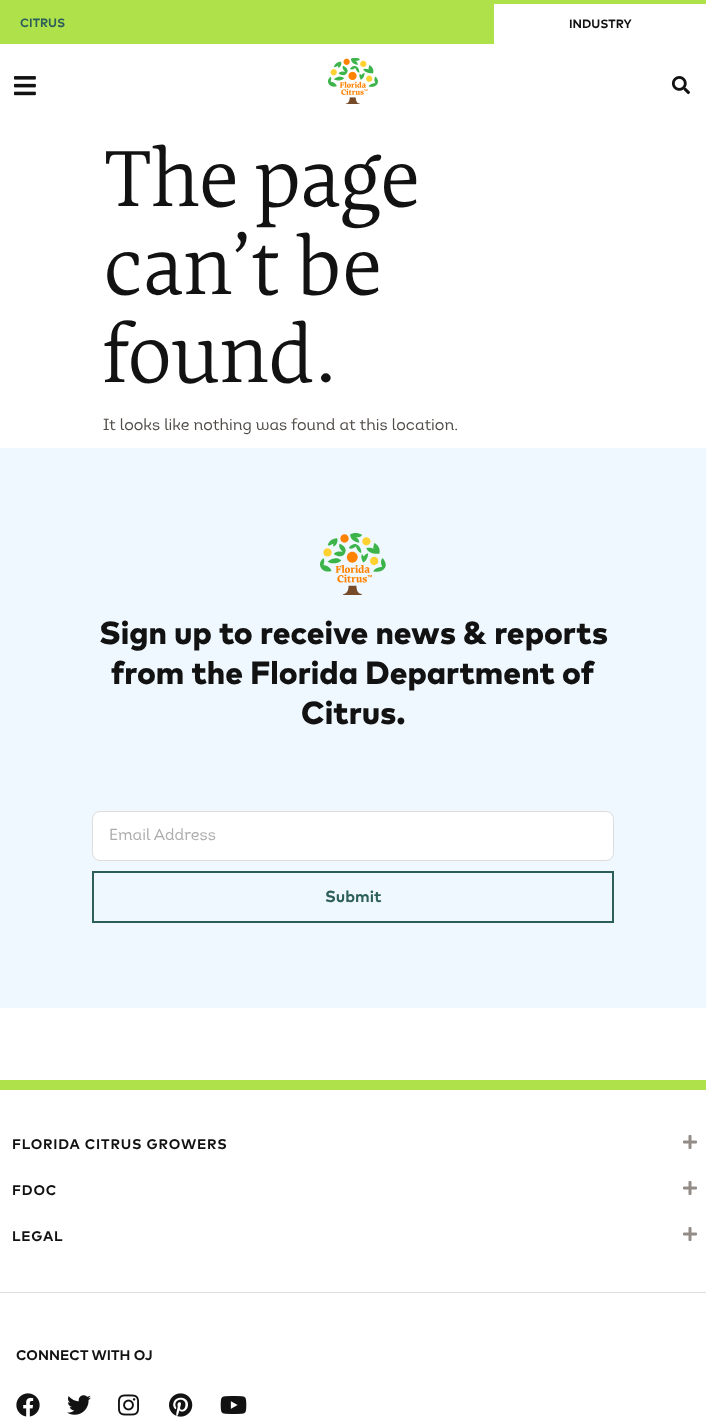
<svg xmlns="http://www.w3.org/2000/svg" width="706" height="1427">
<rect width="100%" height="100%" fill="#fff"/>
<rect width="706" height="44" fill="#afe14b"/>
<text x="20" y="27" style="font-family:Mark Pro;font-size:12px;font-weight:bold;fill:#2d5f5a">CITRUS</text>
<rect x="494" y="4" width="212" height="40" fill="#fff"/>
<text x="569" y="28" style="font-family:Mark Pro;font-size:12px;font-weight:bold;fill:#121213">INDUSTRY</text>
<image x="14" y="76" width="22" height="20" href="media/1.png"/>
<image x="328" y="58" width="50" height="46" href="media/2.png"/>
<image x="671" y="76" width="19" height="19" href="media/3.png"/>
<text x="103" y="206" style="font-family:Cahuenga;font-size:80px;fill:#121213">The page</text>
<text x="103" y="294" style="font-family:Cahuenga;font-size:80px;fill:#121213">can’t be</text>
<text x="103" y="382" style="font-family:Cahuenga;font-size:80px;fill:#121213">found.</text>
<text x="103" y="430" style="font-family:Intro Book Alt;font-size:16px;fill:#4f4b47">It looks like nothing was found at this location.</text>
<rect y="448" width="706" height="560" fill="#eff8ff"/>
<image x="320" y="533" width="66" height="62" href="media/4.png"/>
<text x="99" y="644" style="font-family:Mark Pro;font-size:32px;font-weight:900;fill:#121213">Sign up to receive news &amp; reports</text>
<text x="111" y="684" style="font-family:Mark Pro;font-size:32px;font-weight:900;fill:#121213">from the Florida Department of</text>
<text x="301" y="724" style="font-family:Mark Pro;font-size:32px;font-weight:900;fill:#121213">Citrus.</text>
<rect x="92.5" y="811.5" width="521" height="49" rx="7.5" fill="#fff" stroke="#dedddb"/>
<text x="109" y="840" style="font-family:Intro Book Alt;font-size:16px;fill:#acacac">Email Address</text>
<rect x="93" y="872" width="520" height="50" fill="none" stroke="#2d5f5a" stroke-width="2"/>
<text x="325" y="902" style="font-family:Mark Pro;font-size:16px;font-weight:bold;fill:#2d5f5a">Submit</text>
<rect y="1080" width="706" height="10" fill="#afe14b"/>
<rect y="1292" width="706" height="1" fill="#dedddb"/>
<text x="12" y="1149" style="font-family:Mark Pro;font-size:14px;font-weight:bold;letter-spacing:0.8px;fill:#121213">FLORIDA CITRUS GROWERS</text>
<image x="683" y="1135" width="14" height="14" href="media/5.png"/>
<text x="12" y="1195" style="font-family:Mark Pro;font-size:14px;font-weight:bold;letter-spacing:0.8px;fill:#121213">FDOC</text>
<image x="683" y="1181" width="14" height="14" href="media/5.png"/>
<text x="12" y="1241" style="font-family:Mark Pro;font-size:14px;font-weight:bold;letter-spacing:0.8px;fill:#121213">LEGAL</text>
<image x="683" y="1227" width="14" height="14" href="media/5.png"/>
<text x="16" y="1360" style="font-family:Mark Pro;font-size:14px;font-weight:bold;fill:#121213">CONNECT WITH OJ</text>
<image x="16" y="1393" width="24" height="24" href="media/6.png"/>
<image x="67" y="1395" width="24" height="20" href="media/7.png"/>
<image x="118" y="1394" width="22" height="22" href="media/8.png"/>
<image x="169" y="1393" width="24" height="24" href="media/9.png"/>
<image x="220" y="1396" width="27" height="18" href="media/10.png"/>
</svg>
